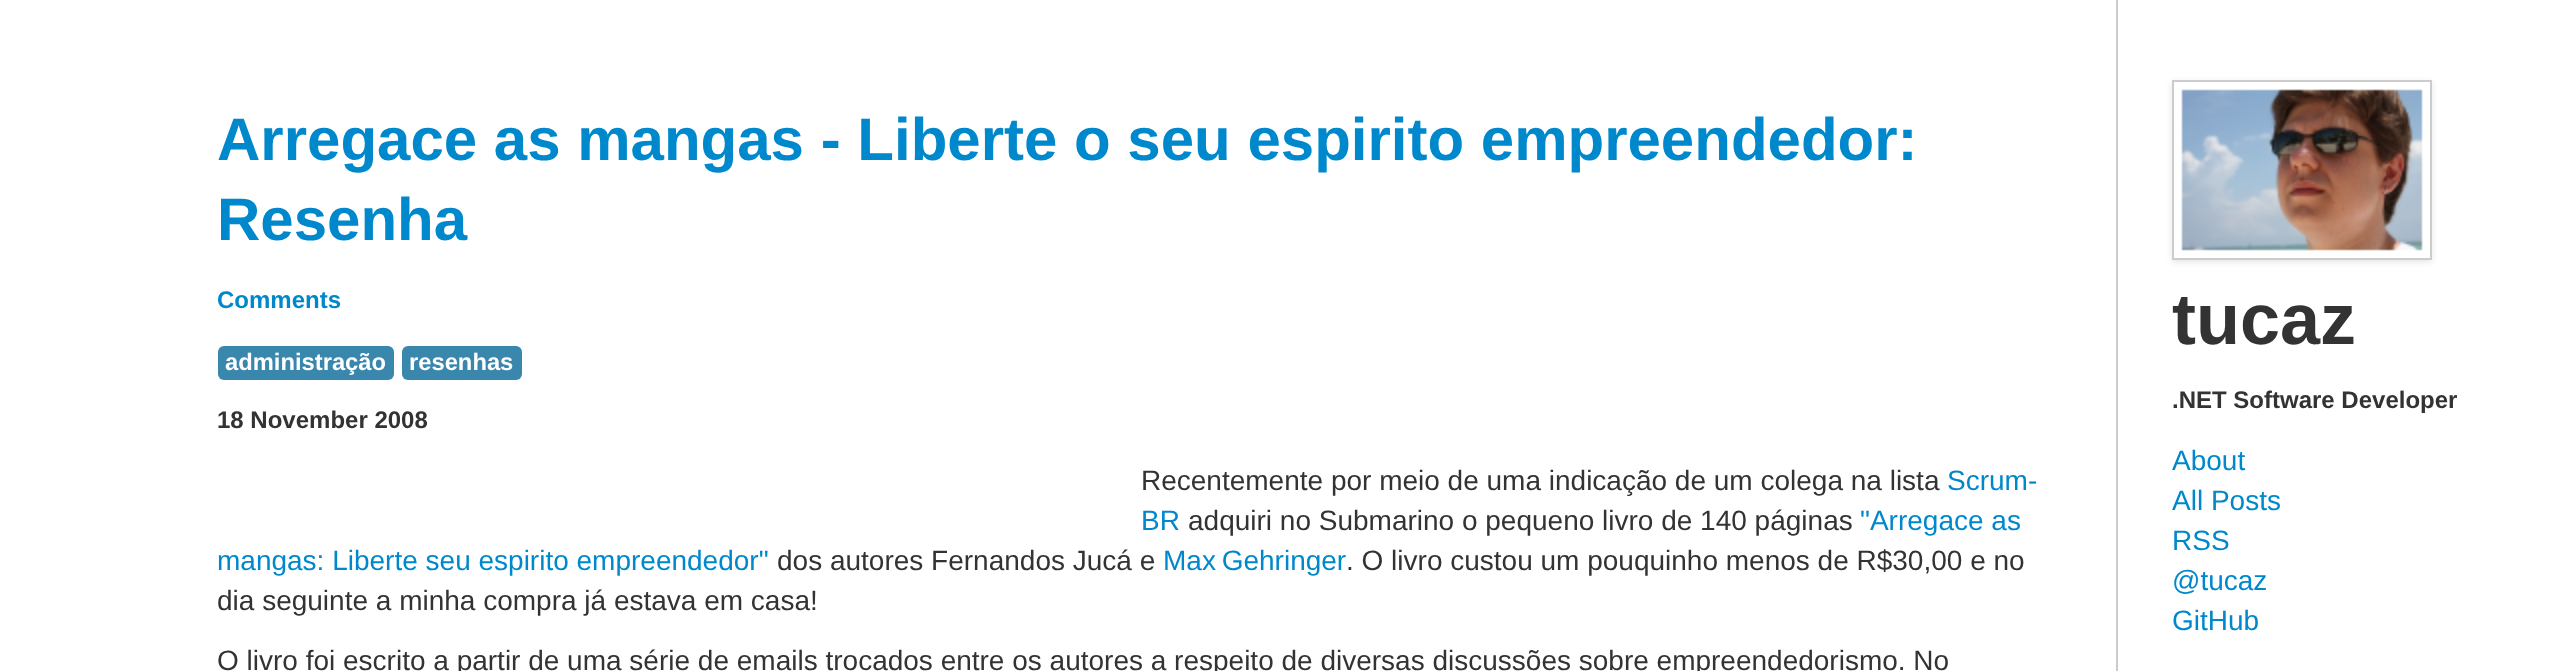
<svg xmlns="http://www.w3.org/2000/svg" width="2552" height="671">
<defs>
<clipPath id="clip1"><path d="M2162 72h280v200h-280zm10 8h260v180h-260z" clip-rule="evenodd"/></clipPath>
</defs>
<rect width="100%" height="100%" fill="#fff"/>
<rect x="2116" width="2" height="671" fill="#ccc"/>
<text x="217" y="160" style="font-family:Liberation Sans;font-size:60px;font-weight:bold;fill:#08c">Arregace as mangas - Liberte o seu espirito empreendedor:</text>
<text x="217" y="240" style="font-family:Liberation Sans;font-size:60px;font-weight:bold;fill:#08c">Resenha</text>
<text x="217" y="308" style="font-family:Liberation Sans;font-size:24px;font-weight:bold;fill:#08c">Comments</text>
<rect x="218" y="346" width="176" height="34" rx="6" fill="#3a87ad"/>
<text x="225" y="370" style="font-family:Liberation Sans;font-size:23.75px;font-weight:bold;fill:#fff">administração</text>
<rect x="402" y="346" width="120" height="34" rx="6" fill="#3a87ad"/>
<text x="409" y="370" style="font-family:Liberation Sans;font-size:23.75px;font-weight:bold;fill:#fff">resenhas</text>
<text x="217" y="428" style="font-family:Liberation Sans;font-size:24px;font-weight:bold;fill:#333">18 November 2008</text>
<text x="1141" y="490" style="font-family:Liberation Sans;font-size:28px;fill:#333">Recentemente por meio de uma indicação de um colega na lista</text>
<text x="1947" y="490" style="font-family:Liberation Sans;font-size:28px;fill:#08c">Scrum-</text>
<text x="1141" y="530" style="font-family:Liberation Sans;font-size:28px;fill:#08c">BR</text>
<text x="1188" y="530" style="font-family:Liberation Sans;font-size:28px;fill:#333">adquiri no Submarino o pequeno livro de 140 páginas</text>
<text x="1860" y="530" style="font-family:Liberation Sans;font-size:28px;fill:#08c">"Arregace as</text>
<text x="217" y="570" style="font-family:Liberation Sans;font-size:28px;fill:#08c">mangas: Liberte seu espirito empreendedor"</text>
<text x="777" y="570" style="font-family:Liberation Sans;font-size:28px;fill:#333">dos autores Fernandos Jucá e</text>
<text x="1163" y="570" word-spacing="-2" style="font-family:Liberation Sans;font-size:28px;fill:#08c">Max Gehringer</text>
<text x="1346" y="570" style="font-family:Liberation Sans;font-size:28px;fill:#333">. O livro custou um pouquinho menos de R$30,00 e no</text>
<text x="217" y="610" style="font-family:Liberation Sans;font-size:28px;fill:#333">dia seguinte a minha compra já estava em casa!</text>
<text x="217" y="670" style="font-family:Liberation Sans;font-size:28px;fill:#333">O livro foi escrito a partir de uma série de emails trocados entre os autores a respeito de diversas discussões sobre empreendedorismo. No</text>
<g clip-path="url(#clip1)">
<rect x="2172" y="82" width="260" height="180" fill="#0000001a" filter="blur(3px)"/>
</g>
<rect x="2173" y="81" width="258" height="178" fill="none" stroke="#ccc" stroke-width="2"/>
<image x="2181" y="89" width="242" height="162" href="media/1.png"/>
<text x="2172" y="344" style="font-family:Liberation Sans;font-size:72px;font-weight:bold;fill:#333">tucaz</text>
<text x="2172" y="408" style="font-family:Liberation Sans;font-size:24px;font-weight:bold;fill:#333">.NET Software Developer</text>
<text x="2172" y="470" style="font-family:Liberation Sans;font-size:28px;fill:#08c">About</text>
<text x="2172" y="510" style="font-family:Liberation Sans;font-size:28px;fill:#08c">All Posts</text>
<text x="2172" y="550" style="font-family:Liberation Sans;font-size:28px;fill:#08c">RSS</text>
<text x="2172" y="590" style="font-family:Liberation Sans;font-size:28px;fill:#08c">@tucaz</text>
<text x="2172" y="630" style="font-family:Liberation Sans;font-size:28px;fill:#08c">GitHub</text>
</svg>
